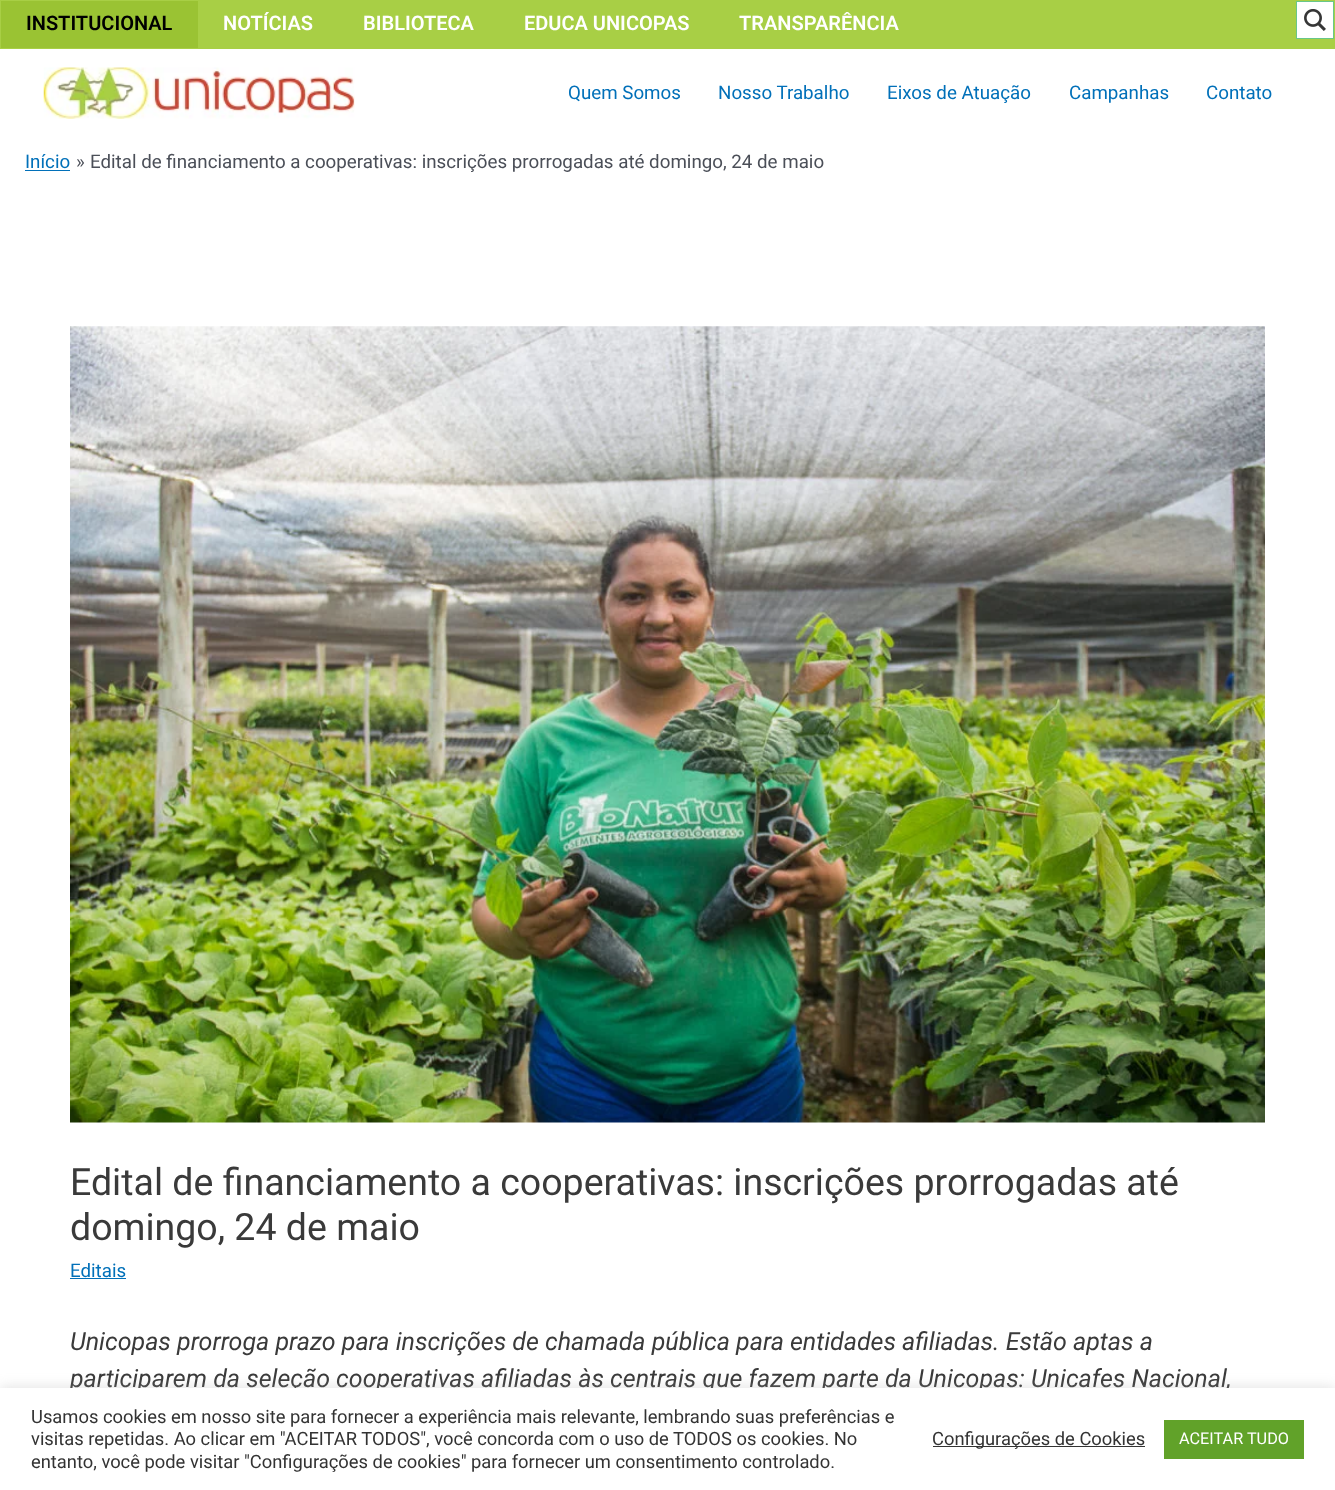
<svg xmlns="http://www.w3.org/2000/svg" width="1335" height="1490">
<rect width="100%" height="100%" fill="#fff"/>
<rect width="1335" height="49" fill="#a8cf45"/>
<rect x="1" y="1" width="197" height="47" fill="#9ac333"/>
<text x="26" y="30" style="font-family:Roboto;font-size:20px;font-weight:600;fill:#000">INSTITUCIONAL</text>
<text x="223" y="30" style="font-family:Roboto;font-size:20px;font-weight:600;fill:#fff">NOTÍCIAS</text>
<text x="363" y="30" style="font-family:Roboto;font-size:20px;font-weight:600;fill:#fff">BIBLIOTECA</text>
<text x="524" y="30" style="font-family:Roboto;font-size:20px;font-weight:600;fill:#fff">EDUCA UNICOPAS</text>
<text x="739" y="30" style="font-family:Roboto;font-size:20px;font-weight:600;fill:#fff">TRANSPARÊNCIA</text>
<rect x="1296.5" y="1.5" width="37" height="37" fill="#fff" stroke="#68c789"/>
<image x="1304" y="9" width="22" height="22" href="media/1.png"/>
<image x="43" y="67" width="312" height="52" href="media/2.png"/>
<text x="568" y="99" style="font-family:Roboto;font-size:18.75px;fill:#0170b9">Quem Somos</text>
<text x="718" y="99" style="font-family:Roboto;font-size:18.75px;fill:#0170b9">Nosso Trabalho</text>
<text x="887" y="99" style="font-family:Roboto;font-size:18.75px;fill:#0170b9">Eixos de Atuação</text>
<text x="1069" y="99" style="font-family:Roboto;font-size:18.75px;fill:#0170b9">Campanhas</text>
<text x="1206" y="99" style="font-family:Roboto;font-size:18.75px;fill:#0170b9">Contato</text>
<text x="25" y="168" style="font-family:Roboto;font-size:18.75px;fill:#0170b9">Início</text>
<rect x="25" y="170" width="45" height="1" fill="#0170b9"/>
<text x="76" y="168" style="font-family:Roboto;font-size:18.75px;fill:#4b4f58">»</text>
<text x="90" y="168" style="font-family:Roboto;font-size:18.75px;fill:#4b4f58">Edital de financiamento a cooperativas: inscrições prorrogadas até domingo, 24 de maio</text>
<image x="70" y="326" width="1195" height="797" href="media/3.png"/>
<text x="70" y="1195" style="font-family:Roboto;font-size:37.5px;fill:#3a3a3a">Edital de financiamento a cooperativas: inscrições prorrogadas até</text>
<text x="70" y="1240" style="font-family:Roboto;font-size:37.5px;fill:#3a3a3a">domingo, 24 de maio</text>
<text x="70" y="1277" style="font-family:Roboto;font-size:18.75px;fill:#0170b9">Editais</text>
<rect x="70" y="1278" width="56" height="1" fill="#0170b9"/>
<text x="70" y="1350" style="font-family:Roboto;font-size:25px;font-style:italic;fill:#3a3a3a">Unicopas prorroga prazo para inscrições de chamada pública para entidades afiliadas. Estão aptas a</text>
<text x="70" y="1387" style="font-family:Roboto;font-size:25px;font-style:italic;fill:#3a3a3a">participarem da seleção cooperativas afiliadas às centrais que fazem parte da Unicopas: Unicafes Nacional,</text>
<rect y="1386" width="1335" height="103" fill="#acabab4d" filter="blur(6px)"/>
<rect y="1388" width="1335" height="102" fill="#fff"/>
<text x="31" y="1423" style="font-family:Roboto;font-size:18.35px;fill:#333">Usamos cookies em nosso site para fornecer a experiência mais relevante, lembrando suas preferências e</text>
<text x="31" y="1445" style="font-family:Roboto;font-size:18.35px;fill:#333">visitas repetidas. Ao clicar em "ACEITAR TODOS", você concorda com o uso de TODOS os cookies. No</text>
<text x="31" y="1468" style="font-family:Roboto;font-size:18.35px;fill:#333">entanto, você pode visitar "Configurações de cookies" para fornecer um consentimento controlado.</text>
<rect x="933" y="1446" width="212" height="1" fill="#333"/>
<text x="932" y="1445" style="font-family:Roboto;font-size:18.35px;fill:#333">Configurações de Cookies</text>
<rect x="1164" y="1420" width="140" height="39" fill="#61a229"/>
<text x="1179" y="1444" style="font-family:Roboto;font-size:16.25px;fill:#fff">ACEITAR TUDO</text>
</svg>
